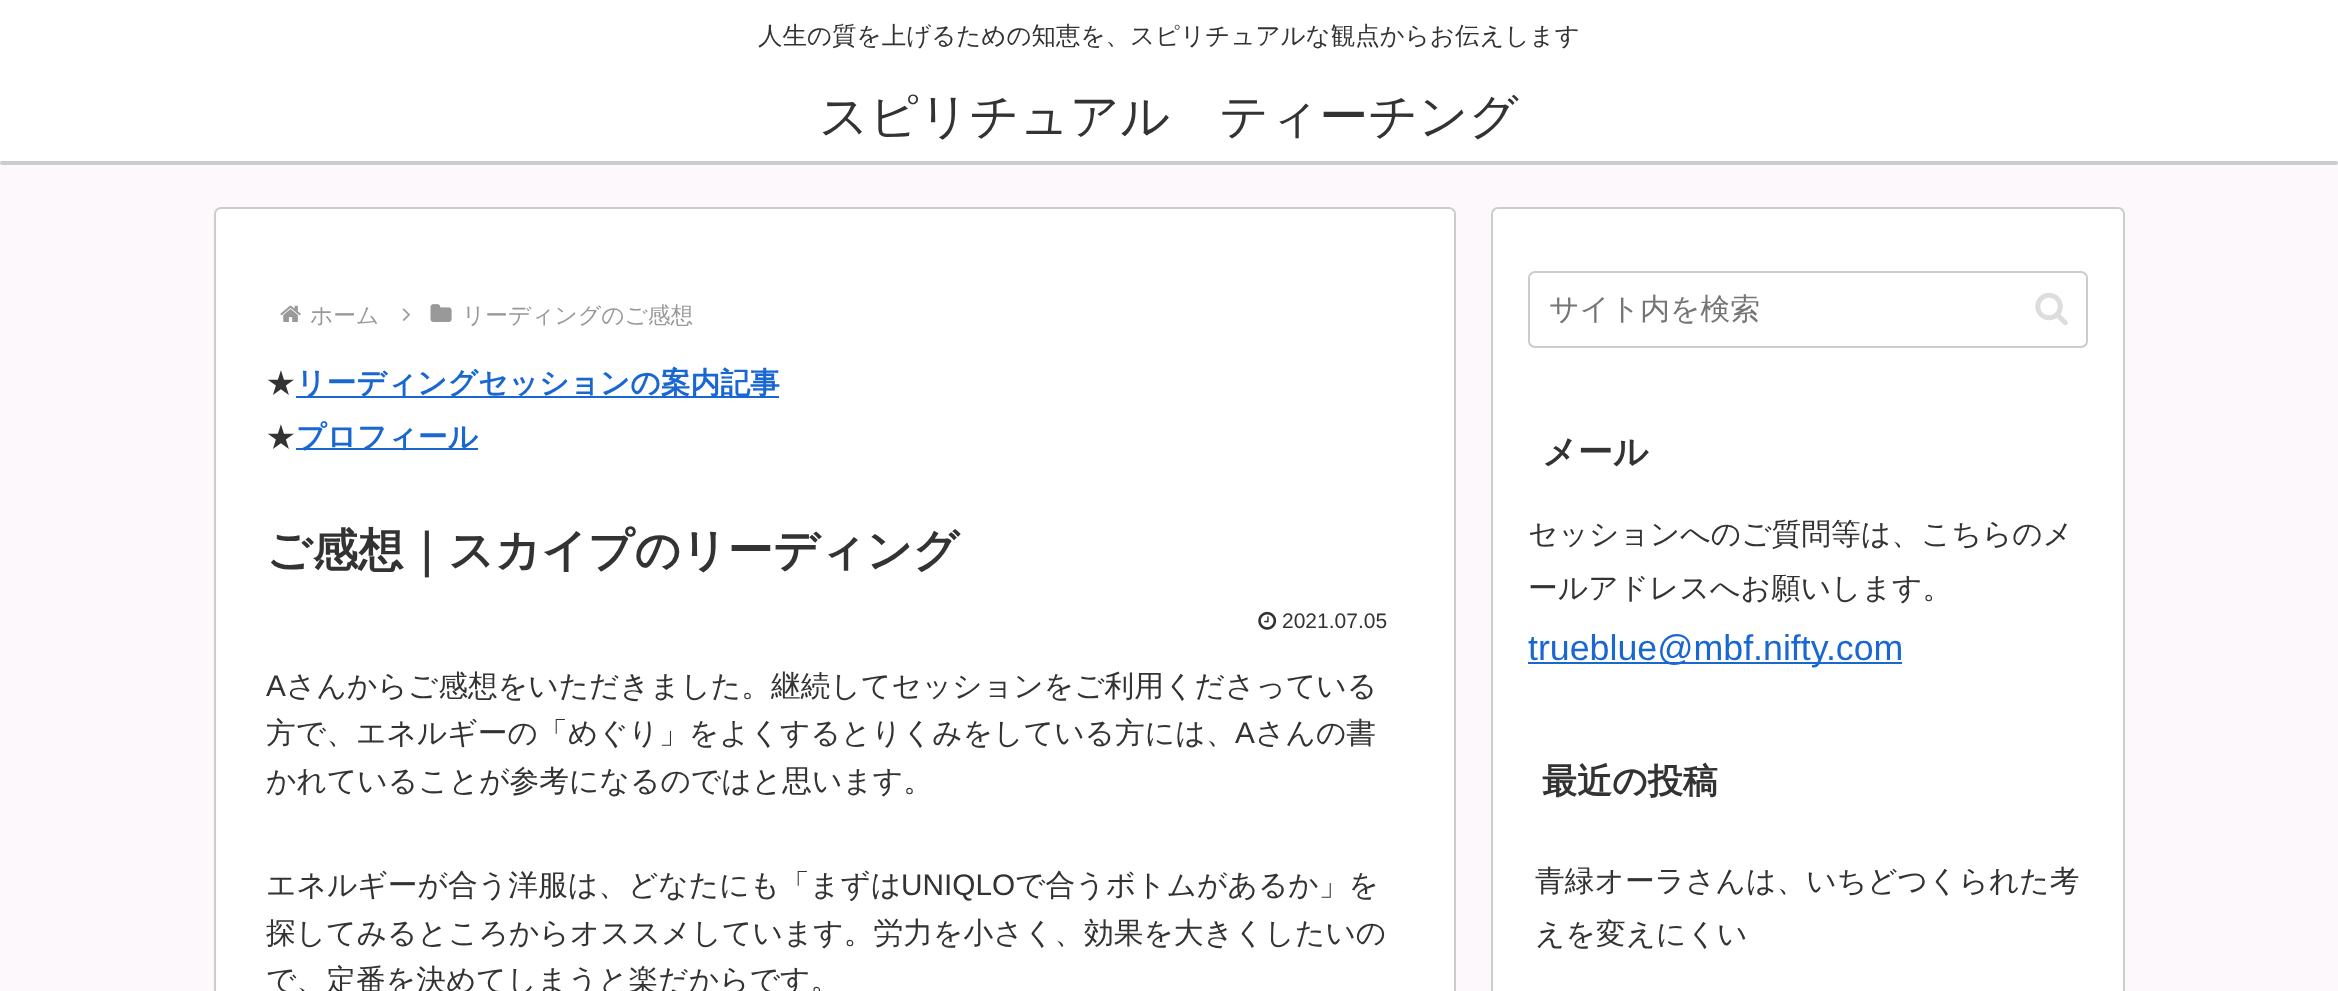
<svg xmlns="http://www.w3.org/2000/svg" width="2338" height="991">
<rect width="100%" height="100%" fill="#fdf8fb"/>
<rect width="2338" height="165" fill="#fff"/>
<text x="758" y="44" style="font-family:WenQuanYi Zen Hei;font-size:24.5px;font-weight:500;fill:#333">人生の質を上げるための知恵を、スピリチュアルな観点からお伝えします</text>
<text x="819" y="133" style="font-family:WenQuanYi Zen Hei;font-size:49px;font-weight:500;fill:#333">スピリチュアル　ティーチング</text>
<rect y="161" width="2338" height="4" rx="2" fill="#ccc"/>
<rect x="215" y="208" width="1240" height="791" rx="6" fill="#fff" stroke="#ccc" stroke-width="2"/>
<image x="280" y="305" width="21" height="17" href="media/1.png"/>
<text x="310" y="323" style="font-family:WenQuanYi Zen Hei;font-size:22.75px;font-weight:500;fill:#999">ホーム</text>
<image x="402" y="308" width="8" height="13" href="media/2.png"/>
<image x="430" y="304" width="22" height="18" href="media/3.png"/>
<text x="462" y="323" style="font-family:WenQuanYi Zen Hei;font-size:22.75px;font-weight:500;fill:#999">リーディングのご感想</text>
<text x="266" y="393" style="font-family:WenQuanYi Zen Hei;font-size:29.75px;font-weight:500;fill:#333">★</text>
<rect x="296" y="396" width="483" height="2" fill="#1967d2"/>
<text x="296" y="393" style="font-family:WenQuanYi Zen Hei;font-size:29.75px;font-weight:bold;fill:#1967d2">リーディングセッションの案内記事</text>
<text x="266" y="447" style="font-family:WenQuanYi Zen Hei;font-size:29.75px;font-weight:500;fill:#333">★</text>
<rect x="296" y="448" width="182" height="2" fill="#1967d2"/>
<text x="296" y="447" style="font-family:WenQuanYi Zen Hei;font-size:29.75px;font-weight:bold;fill:#1967d2">プロフィール</text>
<text x="266" y="566" style="font-family:WenQuanYi Zen Hei;font-size:45.5px;font-weight:bold;fill:#333">ご感想｜スカイプのリーディング</text>
<image x="1258" y="611" width="19" height="19" href="media/4.png"/>
<text x="1282" y="628" style="font-family:Liberation Sans;font-size:21px;fill:#333">2021.07.05</text>
<text x="266" y="696" style="font-family:Liberation Sans;font-size:29.75px;fill:#333">A</text>
<text x="286" y="696" style="font-family:WenQuanYi Zen Hei;font-size:29.75px;font-weight:500;fill:#333">さんからご感想をいただきました。継続してセッションをご利用くださっている</text>
<text x="266" y="743" style="font-family:WenQuanYi Zen Hei;font-size:29.75px;font-weight:500;fill:#333">方で、エネルギーの「めぐり」をよくするとりくみをしている方には、</text>
<text x="1235" y="743" style="font-family:Liberation Sans;font-size:29.75px;fill:#333">A</text>
<text x="1255" y="743" style="font-family:WenQuanYi Zen Hei;font-size:29.75px;font-weight:500;fill:#333">さんの書</text>
<text x="266" y="791" style="font-family:WenQuanYi Zen Hei;font-size:29.75px;font-weight:500;fill:#333">かれていることが参考になるのではと思います。</text>
<text x="266" y="895" style="font-family:WenQuanYi Zen Hei;font-size:29.75px;font-weight:500;fill:#333">エネルギーが合う洋服は、どなたにも「まずは</text>
<text x="901" y="895" style="font-family:Liberation Sans;font-size:29.75px;fill:#333">UNIQLO</text>
<text x="1015" y="895" style="font-family:WenQuanYi Zen Hei;font-size:29.75px;font-weight:500;fill:#333">で合うボトムがあるか」を</text>
<text x="266" y="943" style="font-family:WenQuanYi Zen Hei;font-size:29.75px;font-weight:500;fill:#333">探してみるところからオススメしています。労力を小さく、効果を大きくしたいの</text>
<text x="266" y="990" style="font-family:WenQuanYi Zen Hei;font-size:29.75px;font-weight:500;fill:#333">で、定番を決めてしまうと楽だからです。</text>
<rect x="1492" y="208" width="632" height="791" rx="6" fill="#fff" stroke="#ccc" stroke-width="2"/>
<rect x="1529" y="272" width="558" height="75" rx="6" fill="none" stroke="#ccc" stroke-width="2"/>
<text x="1549" y="319" style="font-family:WenQuanYi Zen Hei;font-size:29.75px;font-weight:500;fill:#757575">サイト内を検索</text>
<image x="2035" y="292" width="33" height="34" href="media/5.png"/>
<text x="1542" y="464" style="font-family:WenQuanYi Zen Hei;font-size:35px;font-weight:bold;fill:#333">メール</text>
<text x="1528" y="544" style="font-family:WenQuanYi Zen Hei;font-size:29.75px;font-weight:500;fill:#333">セッションへのご質問等は、こちらのメ</text>
<text x="1528" y="598" style="font-family:WenQuanYi Zen Hei;font-size:29.75px;font-weight:500;fill:#333">ールアドレスへお願いします。</text>
<rect x="1528" y="662" width="374" height="2" fill="#1967d2"/>
<text x="1528" y="660" style="font-family:Liberation Sans;font-size:35.75px;fill:#1967d2">trueblue@mbf.nifty.com</text>
<text x="1542" y="793" style="font-family:WenQuanYi Zen Hei;font-size:35px;font-weight:bold;fill:#333">最近の投稿</text>
<text x="1535" y="891" style="font-family:WenQuanYi Zen Hei;font-size:29.75px;font-weight:500;fill:#333">青緑オーラさんは、いちどつくられた考</text>
<text x="1535" y="944" style="font-family:WenQuanYi Zen Hei;font-size:29.75px;font-weight:500;fill:#333">えを変えにくい</text>
</svg>
